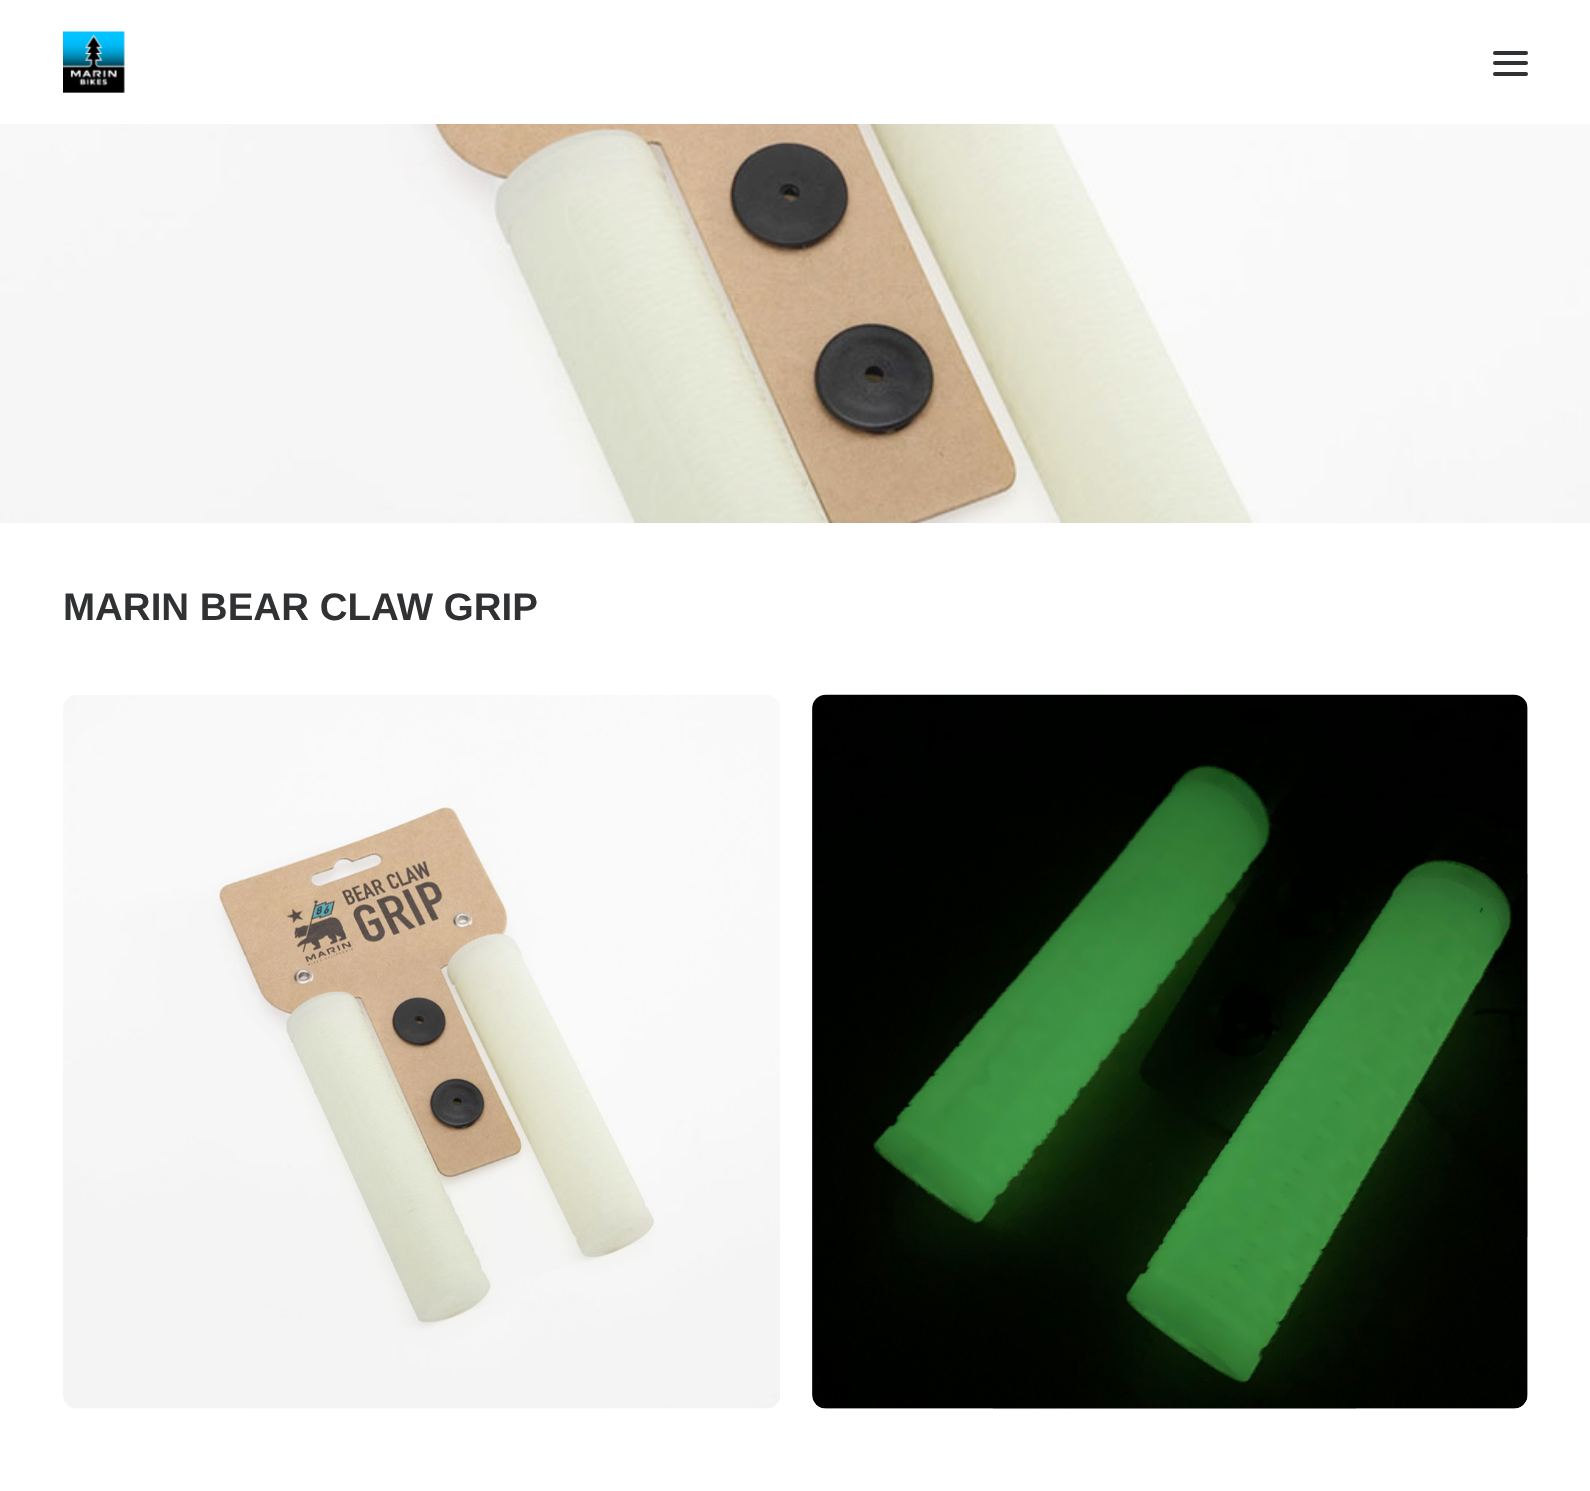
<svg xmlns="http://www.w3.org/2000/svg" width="1590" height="1491">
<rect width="100%" height="100%" fill="#fff"/>
<image x="63" y="31" width="62" height="62" href="media/1.png"/>
<rect x="1493" y="61" width="35" height="4" rx="2" fill="#303133"/>
<rect x="1493" y="51" width="35" height="4" rx="2" fill="#303133"/>
<rect x="1493" y="72" width="35" height="4" rx="2" fill="#303133"/>
<image x="0" y="124" width="1590" height="399" href="media/2.png"/>
<text x="63" y="620" style="font-family:Liberation Sans;font-size:38.5px;font-weight:bold;fill:#303133">MARIN BEAR CLAW GRIP</text>
<image x="63" y="695" width="717" height="714" href="media/3.png"/>
<image x="812" y="694" width="716" height="715" href="media/4.png"/>
</svg>
